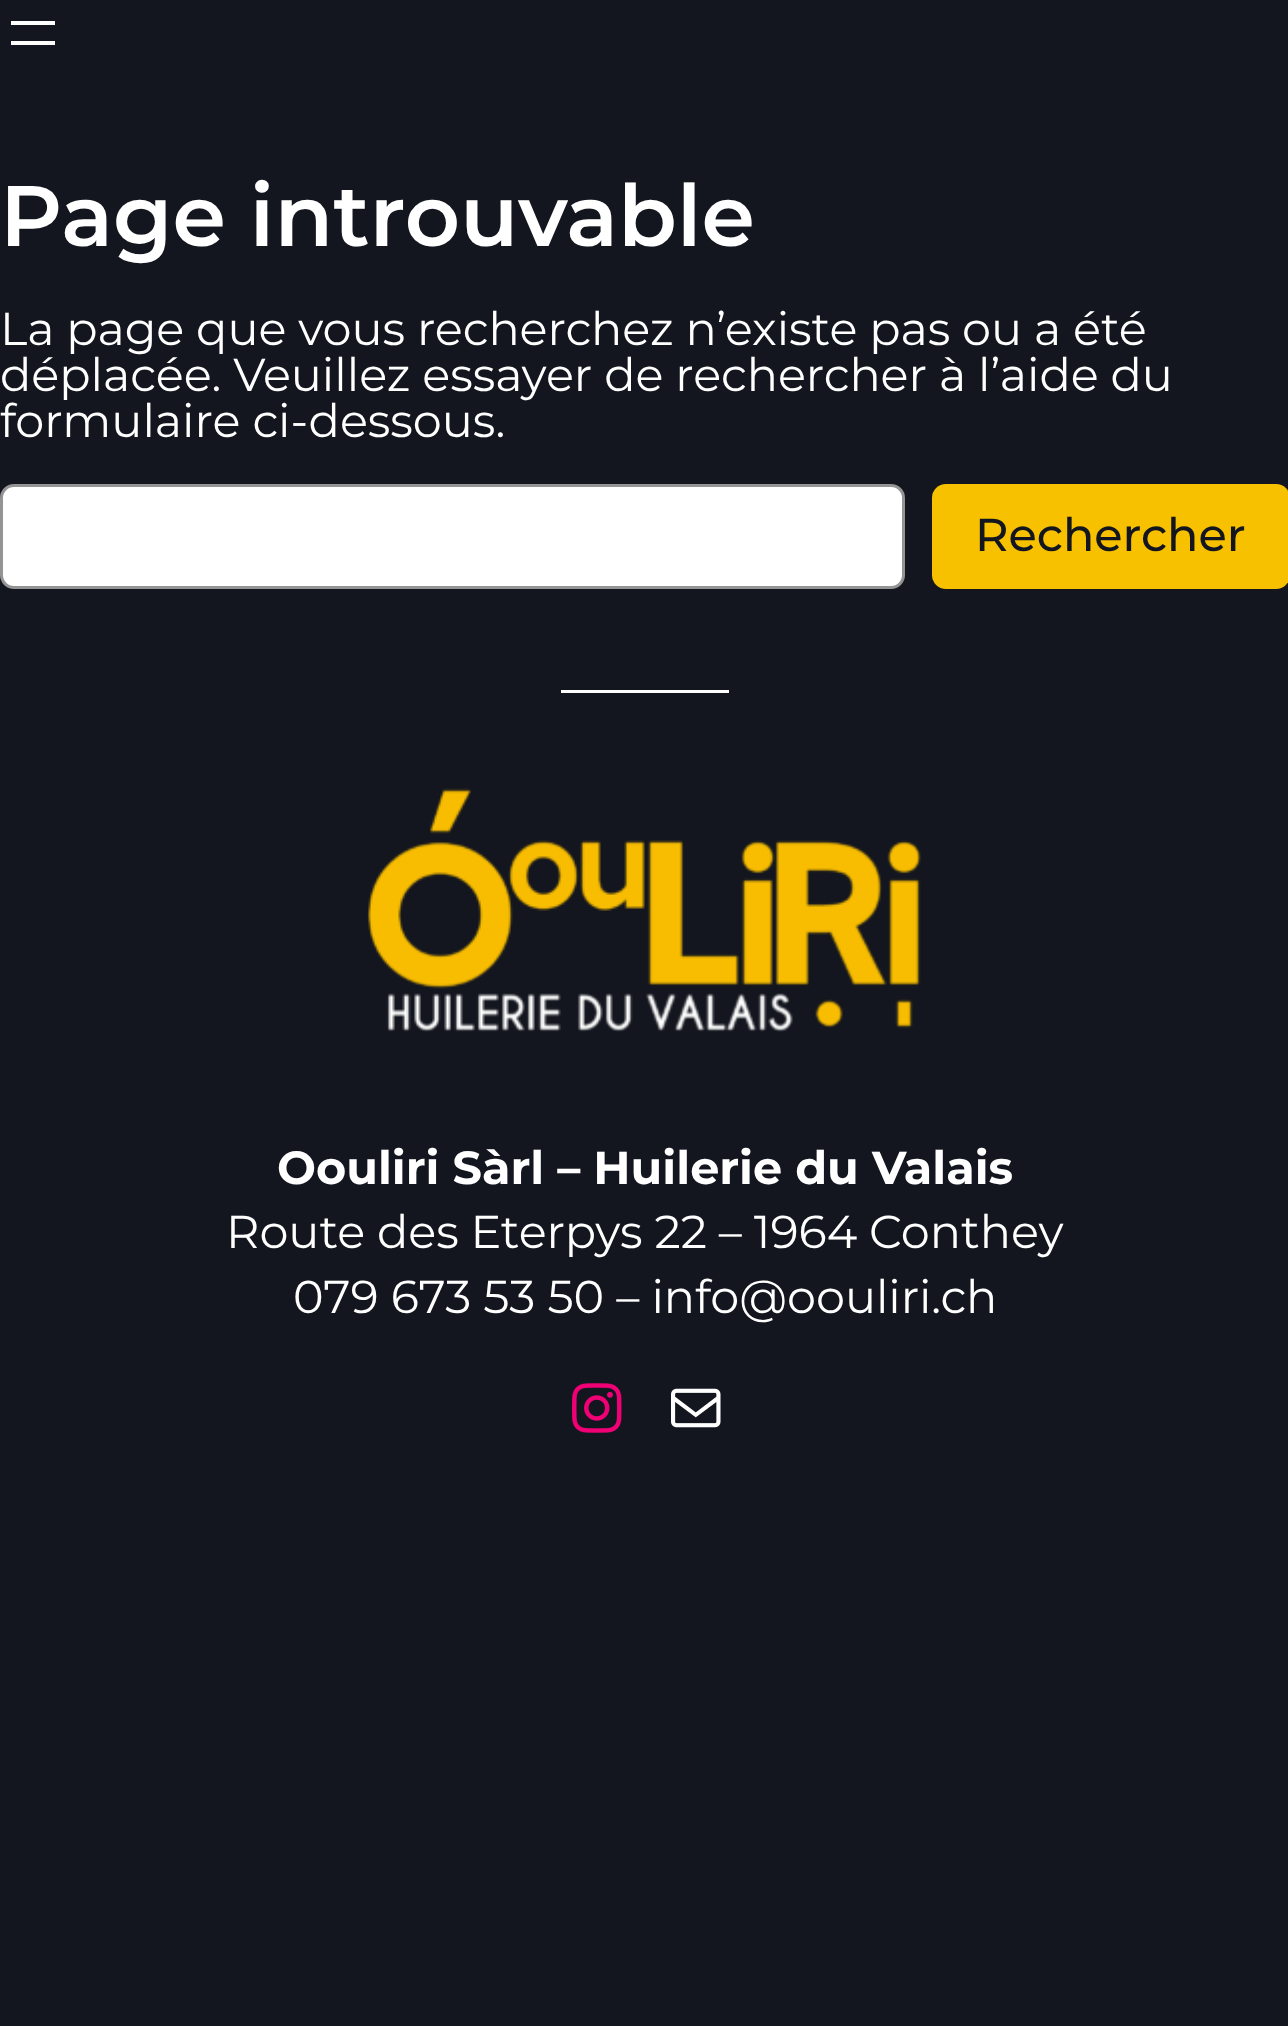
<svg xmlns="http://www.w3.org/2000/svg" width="1288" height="2026">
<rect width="100%" height="100%" fill="#13161e"/>
<rect x="11" y="21" width="44" height="4" fill="#fff"/>
<rect x="11" y="41" width="44" height="4" fill="#fff"/>
<text x="0" y="246" style="font-family:Montserrat;font-size:85.75px;font-weight:600;fill:#fff">Page introuvable</text>
<text x="0" y="345" word-spacing="-0.25" style="font-family:Montserrat;font-size:46.2px;fill:#fff">La page que vous recherchez n’existe pas ou a été</text>
<text x="0" y="391" word-spacing="-0.25" style="font-family:Montserrat;font-size:46.2px;fill:#fff">déplacée. Veuillez essayer de rechercher à l’aide du</text>
<text x="0" y="437" style="font-family:Montserrat;font-size:46.2px;fill:#fff">formulaire ci-dessous.</text>
<rect x="1.5" y="485.5" width="902" height="102" rx="12.5" fill="#fff" stroke="#949494" stroke-width="3"/>
<rect x="932" y="484" width="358" height="105" rx="14" fill="#f7c100"/>
<text x="975" y="551" style="font-family:Montserrat;font-size:46.2px;font-weight:500;fill:#13161e">Rechercher</text>
<rect x="561" y="690" width="168" height="3" fill="#fff"/>
<image x="367" y="788" width="554" height="244" href="media/1.png"/>
<text x="277" y="1184" style="font-family:Montserrat;font-size:46.2px;font-weight:bold;fill:#fff">Oouliri Sàrl – Huilerie du Valais</text>
<text x="226" y="1248" word-spacing="-0.25" style="font-family:Montserrat;font-size:46.2px;fill:#fff">Route des Eterpys 22 – 1964 Conthey</text>
<text x="293" y="1313" style="font-family:Montserrat;font-size:46.2px;fill:#fff">079 673 53 50 – info@oouliri.ch</text>
<image x="572" y="1383" width="50" height="50" href="media/2.png"/>
<image x="671" y="1388" width="50" height="40" href="media/3.png"/>
</svg>
